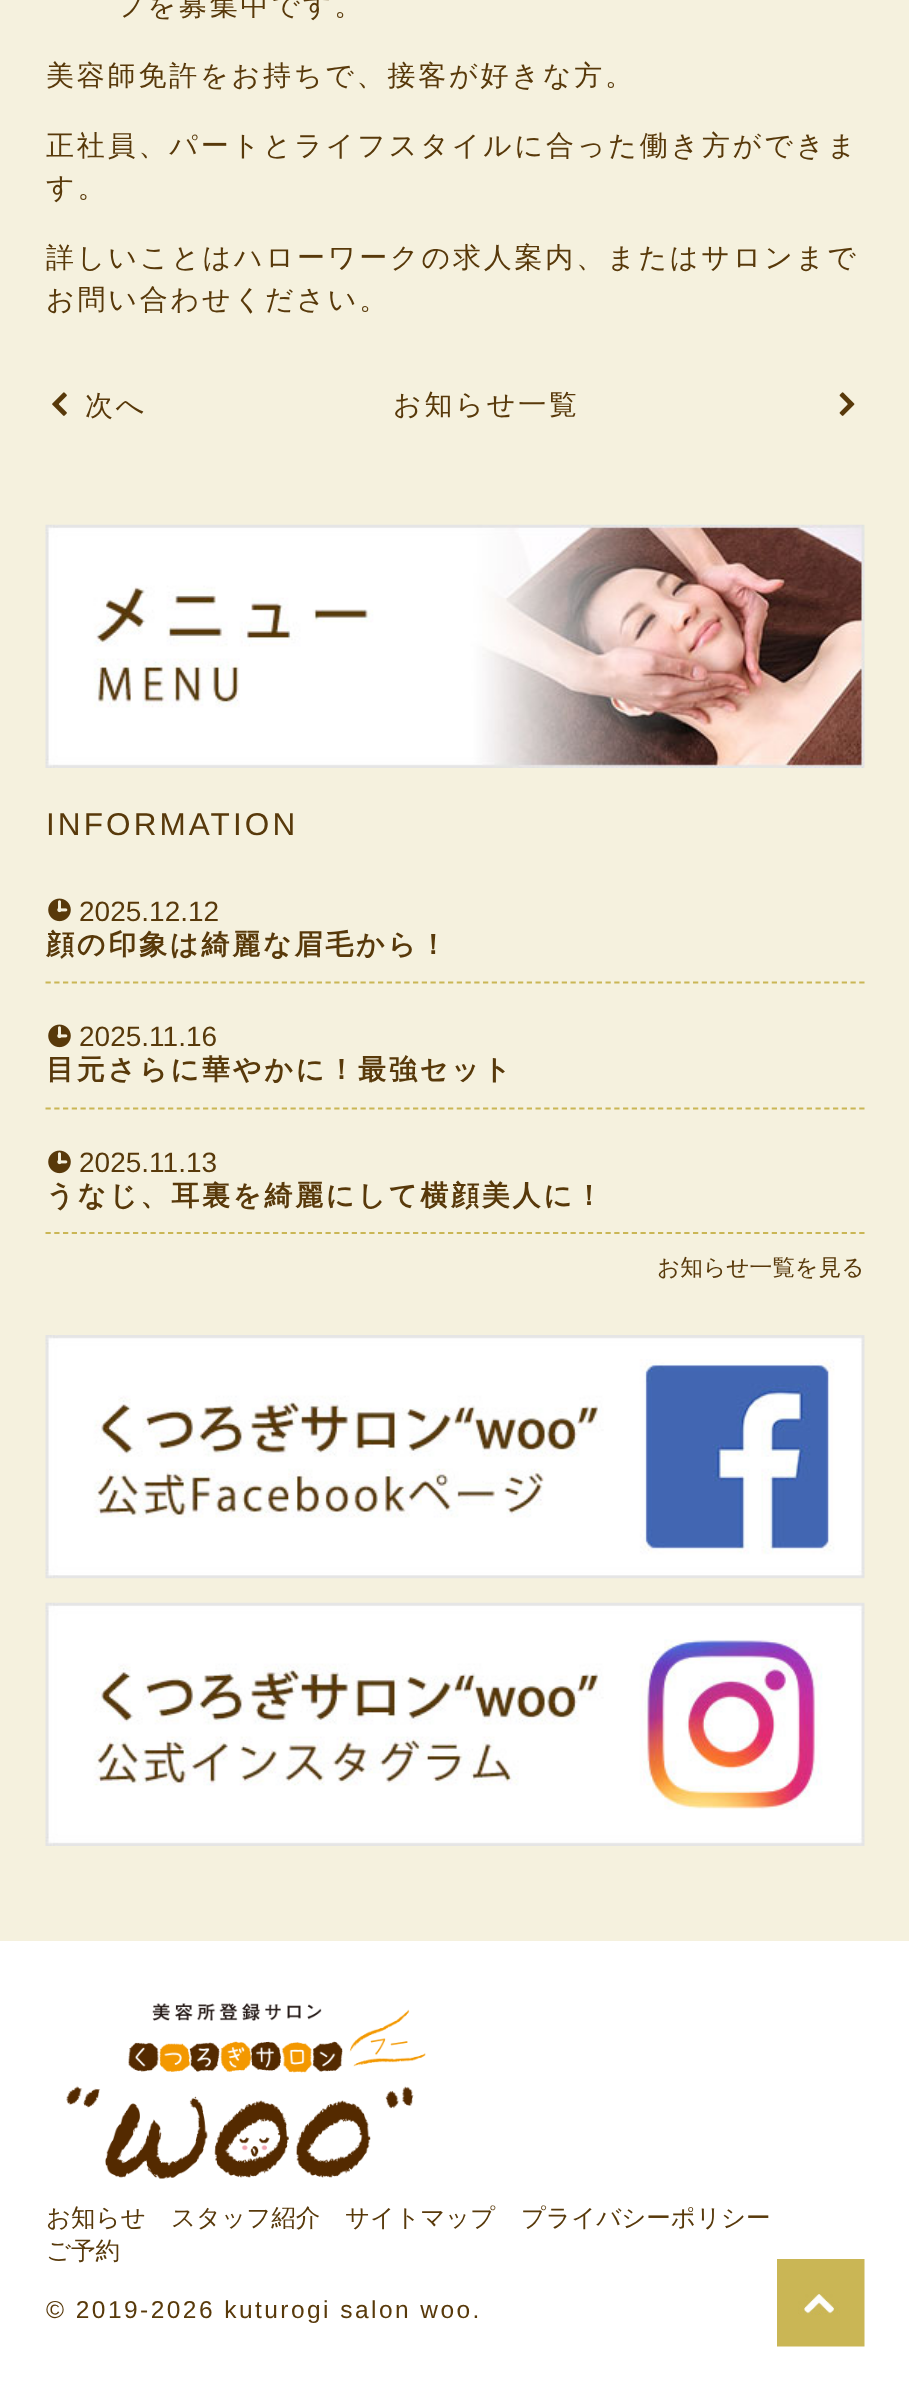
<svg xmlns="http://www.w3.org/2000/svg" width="909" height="2405">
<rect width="100%" height="100%" fill="#f5f1de"/>
<text x="116" y="15" style="font-family:WenQuanYi Zen Hei;font-size:28px;font-weight:500;letter-spacing:2.8px;fill:#58390a">フを募集中です。</text>
<text x="46" y="85" style="font-family:WenQuanYi Zen Hei;font-size:28px;font-weight:500;letter-spacing:2.8px;fill:#58390a">美容師免許をお持ちで、接客が好きな方。</text>
<text x="46" y="155" style="font-family:WenQuanYi Zen Hei;font-size:28px;font-weight:500;letter-spacing:2.8px;fill:#58390a">正社員、パートとライフスタイルに合った働き方ができま</text>
<text x="46" y="197" style="font-family:WenQuanYi Zen Hei;font-size:28px;font-weight:500;letter-spacing:2.8px;fill:#58390a">す。</text>
<text x="46" y="267" style="font-family:WenQuanYi Zen Hei;font-size:28px;font-weight:500;letter-spacing:2.8px;fill:#58390a">詳しいことはハローワークの求人案内、またはサロンまで</text>
<text x="46" y="309" style="font-family:WenQuanYi Zen Hei;font-size:28px;font-weight:500;letter-spacing:2.8px;fill:#58390a">お問い合わせください。</text>
<image x="52" y="392" width="15" height="24" href="media/1.png"/>
<text x="85" y="415" style="font-family:WenQuanYi Zen Hei;font-size:28px;font-weight:500;letter-spacing:2.8px;fill:#58390a">次へ</text>
<text x="393" y="414" style="font-family:WenQuanYi Zen Hei;font-size:28px;font-weight:500;letter-spacing:2.8px;fill:#58390a">お知らせ一覧</text>
<image x="839" y="392" width="16" height="24" href="media/2.png"/>
<image x="45" y="524" width="820" height="244" href="media/3.png"/>
<text x="46" y="835" style="font-family:Liberation Sans;font-size:31.5px;letter-spacing:3.1px;fill:#58390a">INFORMATION</text>
<path d="M45.5 982.5h819" fill="none" stroke="#cab655" stroke-width="1.8" stroke-dasharray="5.25 3.5"/>
<image x="48" y="898" width="23" height="24" href="media/4.png"/>
<text x="79" y="921" style="font-family:Liberation Sans;font-size:28px;fill:#58390a">2025.12.12</text>
<text x="46" y="954" style="font-family:WenQuanYi Zen Hei;font-size:28px;font-weight:bold;letter-spacing:2.8px;fill:#58390a">顔の印象は綺麗な眉毛から！</text>
<path d="M45.5 1108.5h819" fill="none" stroke="#cab655" stroke-width="1.8" stroke-dasharray="5.25 3.5"/>
<image x="48" y="1024" width="23" height="24" href="media/4.png"/>
<text x="79" y="1046" style="font-family:Liberation Sans;font-size:28px;fill:#58390a">2025.11.16</text>
<text x="46" y="1079" style="font-family:WenQuanYi Zen Hei;font-size:28px;font-weight:bold;letter-spacing:2.8px;fill:#58390a">目元さらに華やかに！最強セット</text>
<path d="M45.5 1233h819" fill="none" stroke="#cab655" stroke-width="1.8" stroke-dasharray="5.25 3.5"/>
<image x="48" y="1150" width="23" height="24" href="media/4.png"/>
<text x="79" y="1172" style="font-family:Liberation Sans;font-size:28px;fill:#58390a">2025.11.13</text>
<text x="46" y="1205" style="font-family:WenQuanYi Zen Hei;font-size:28px;font-weight:bold;letter-spacing:2.8px;fill:#58390a">うなじ、耳裏を綺麗にして横顔美人に！</text>
<text x="657" y="1275" style="font-family:WenQuanYi Zen Hei;font-size:22.75px;font-weight:500;fill:#58390a">お知らせ一覧を見る</text>
<image x="45" y="1335" width="820" height="244" href="media/5.png"/>
<image x="45" y="1602" width="820" height="244" href="media/6.png"/>
<rect y="1941" width="909" height="464" fill="#fff"/>
<image x="66" y="2003" width="360" height="176" href="media/7.png"/>
<text x="46" y="2226" style="font-family:WenQuanYi Zen Hei;font-size:24.5px;font-weight:500;fill:#58390a">お知らせ</text>
<text x="171" y="2226" style="font-family:WenQuanYi Zen Hei;font-size:24.5px;font-weight:500;fill:#58390a">スタッフ紹介</text>
<text x="345" y="2226" style="font-family:WenQuanYi Zen Hei;font-size:24.5px;font-weight:500;fill:#58390a">サイトマップ</text>
<text x="521" y="2226" style="font-family:WenQuanYi Zen Hei;font-size:24.5px;font-weight:500;fill:#58390a">プライバシーポリシー</text>
<text x="46" y="2259" style="font-family:WenQuanYi Zen Hei;font-size:24.5px;font-weight:500;fill:#58390a">ご予約</text>
<text x="46" y="2318" style="font-family:Liberation Sans;font-size:24.5px;letter-spacing:2.45px;fill:#58390a">© 2019-2026 kuturogi salon woo.</text>
<image x="777" y="2259" width="88" height="88" href="media/8.png"/>
</svg>
